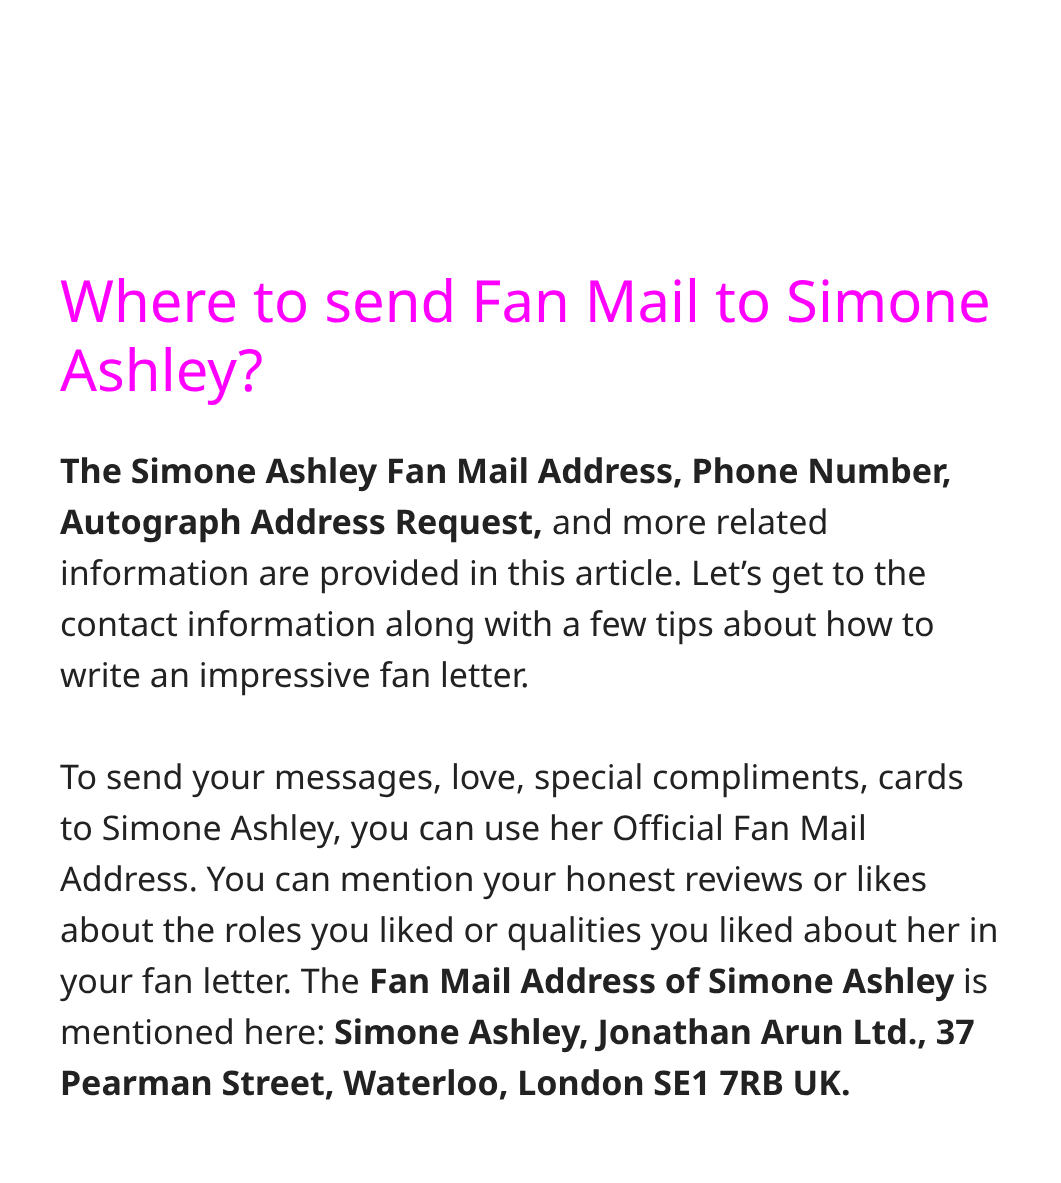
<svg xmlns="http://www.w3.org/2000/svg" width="1061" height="1183">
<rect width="100%" height="100%" fill="#fff"/>
<text x="60" y="322" style="font-family:Noto Sans;font-size:58px;fill:#f0f">Where to send Fan Mail to Simone</text>
<text x="60" y="391" style="font-family:Noto Sans;font-size:58px;fill:#f0f">Ashley?</text>
<text x="60" y="483" style="font-family:Noto Sans;font-size:34px;font-weight:bold;fill:#222">The Simone Ashley Fan Mail Address, Phone Number,</text>
<text x="60" y="534" style="font-family:Noto Sans;font-size:34px;font-weight:bold;fill:#222">Autograph Address Request,</text>
<text x="552" y="534" style="font-family:Noto Sans;font-size:34px;fill:#222">and more related</text>
<text x="60" y="585" style="font-family:Noto Sans;font-size:34px;fill:#222">information are provided in this article. Let’s get to the</text>
<text x="60" y="636" style="font-family:Noto Sans;font-size:34px;fill:#222">contact information along with a few tips about how to</text>
<text x="60" y="687" style="font-family:Noto Sans;font-size:34px;fill:#222">write an impressive fan letter.</text>
<text x="60" y="789" style="font-family:Noto Sans;font-size:34px;fill:#222">To send your messages, love, special compliments, cards</text>
<text x="60" y="840" style="font-family:Noto Sans;font-size:34px;fill:#222">to Simone Ashley, you can use her Official Fan Mail</text>
<text x="60" y="891" style="font-family:Noto Sans;font-size:34px;fill:#222">Address. You can mention your honest reviews or likes</text>
<text x="60" y="942" style="font-family:Noto Sans;font-size:34px;fill:#222">about the roles you liked or qualities you liked about her in</text>
<text x="60" y="993" style="font-family:Noto Sans;font-size:34px;fill:#222">your fan letter. The</text>
<text x="369" y="993" style="font-family:Noto Sans;font-size:34px;font-weight:bold;fill:#222">Fan Mail Address of Simone Ashley</text>
<text x="963" y="993" style="font-family:Noto Sans;font-size:34px;fill:#222">is</text>
<text x="60" y="1044" style="font-family:Noto Sans;font-size:34px;fill:#222">mentioned here:</text>
<text x="334" y="1044" style="font-family:Noto Sans;font-size:34px;font-weight:bold;fill:#222">Simone Ashley, Jonathan Arun Ltd., 37</text>
<text x="60" y="1095" style="font-family:Noto Sans;font-size:34px;font-weight:bold;fill:#222">Pearman Street, Waterloo, London SE1 7RB UK.</text>
</svg>
